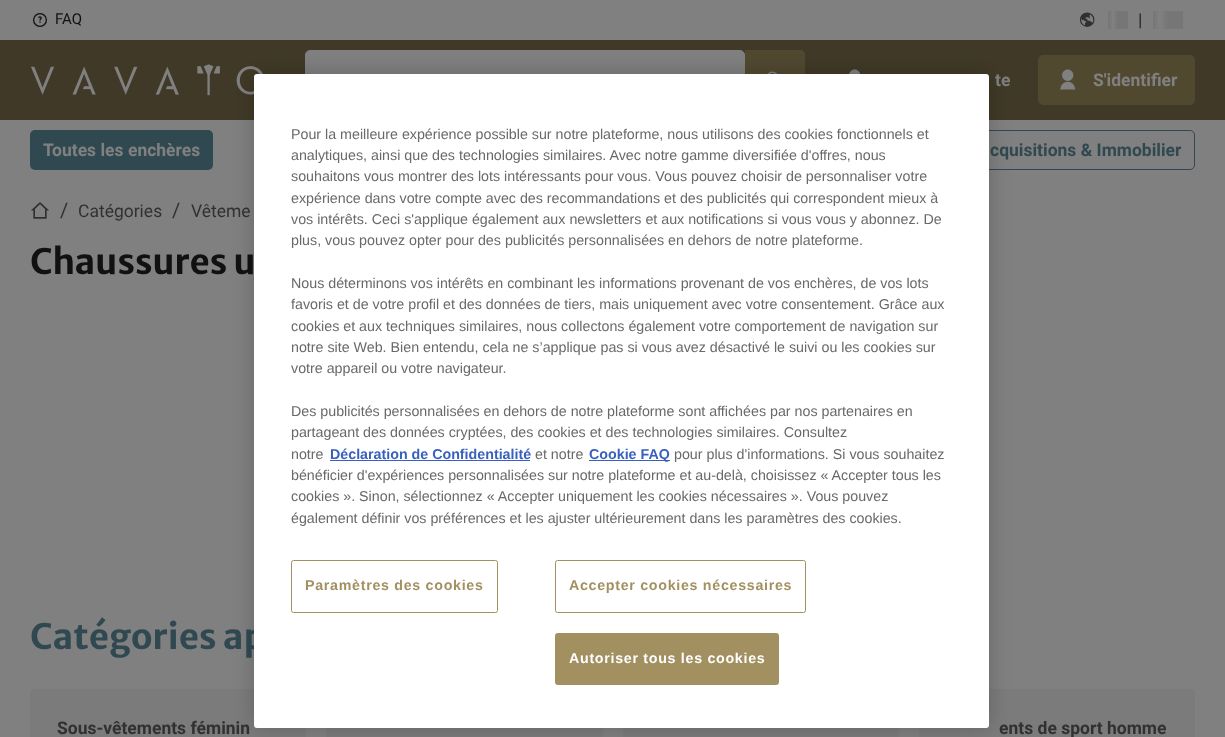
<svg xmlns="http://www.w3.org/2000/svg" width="1225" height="737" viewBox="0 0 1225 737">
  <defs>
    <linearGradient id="g1" gradientUnits="userSpaceOnUse" x1="1108" y1="20" x2="1113" y2="20"><stop offset="0" stop-color="#767676"/><stop offset="1" stop-color="#808080"/></linearGradient>
    <linearGradient id="g2" gradientUnits="userSpaceOnUse" x1="1113" y1="20" x2="1118" y2="20"><stop offset="0" stop-color="#808080"/><stop offset="1" stop-color="#767676"/></linearGradient>
    <linearGradient id="g3" gradientUnits="userSpaceOnUse" x1="1153" y1="20" x2="1160" y2="20"><stop offset="0" stop-color="#767676"/><stop offset="1" stop-color="#808080"/></linearGradient>
    <linearGradient id="g4" gradientUnits="userSpaceOnUse" x1="1160" y1="20" x2="1168" y2="20"><stop offset="0" stop-color="#808080"/><stop offset="1" stop-color="#767676"/></linearGradient>
    <filter id="blur1" x="-50%" y="-200%" width="200%" height="500%"><feGaussianBlur stdDeviation="11"/></filter>
  </defs>
  <rect width="100%" height="100%" fill="#808080"/>
  <image x="33" y="13" width="14" height="14" href="img1.png"/>
  <text x="55" y="24" font-family="Roboto" font-size="15" fill="#111111">FAQ</text>
  <image x="1079" y="12" width="16" height="15" href="img2.png"/>
  <rect x="1118" y="11" width="10" height="18" fill="#767676"/>
  <rect x="1108" y="11" width="4" height="18" fill="url(#g1)"/>
  <rect x="1114" y="11" width="4" height="18" fill="url(#g2)"/>
  <text x="1138" y="26" font-family="Roboto" font-size="17.5" font-weight="bold" fill="#313131">|</text>
  <rect x="1168" y="11" width="15" height="18" fill="#767676"/>
  <rect x="1153" y="11" width="5" height="18" fill="url(#g3)"/>
  <rect x="1162" y="11" width="6" height="18" fill="url(#g4)"/>
  <rect x="0" y="40" width="1225" height="80" fill="#403927"/>
  <image x="31" y="64" width="232" height="32" href="img3.png"/>
  <rect x="305.5" y="50.5" width="439" height="59" rx="4.5" fill="#808080" stroke="#808080"/>
  <path d="M745 50H800C803 50 805 52 805 55V105C805 108 803 110 800 110H745Z" fill="#514830"/>
  <image x="767" y="71" width="10" height="3" href="img4.png"/>
  <image x="849" y="69" width="12" height="5" href="img5.png"/>
  <text x="995" y="86" font-family="Roboto" font-size="17.5" font-weight="bold" fill="#808080">te</text>
  <rect x="1038" y="55" width="157" height="50" rx="5" fill="#514830"/>
  <image x="1060" y="69" width="16" height="21" href="img6.png"/>
  <text x="1093" y="86" font-family="Roboto" font-size="17.5" font-weight="bold" fill="#808080">S'identifier</text>
  <rect x="30" y="130" width="183" height="40" rx="5" fill="#304951"/>
  <text x="43" y="156" font-family="Roboto" font-size="17.5" font-weight="bold" fill="#808080">Toutes les enchères</text>
  <rect x="964.5" y="130.5" width="230" height="39" rx="4.5" fill="none" stroke="#304951"/>
  <text x="990" y="156" font-family="Roboto" font-size="17.5" font-weight="bold" fill="#304951">cquisitions &amp; Immobilier</text>
  <image x="31" y="202" width="18" height="17" href="img7.png"/>
  <text x="60" y="217" font-family="Roboto" font-size="20" fill="#313131">/</text>
  <text x="78" y="217" font-family="Roboto" font-size="17.5" fill="#313131">Catégories</text>
  <text x="172" y="217" font-family="Roboto" font-size="20" fill="#313131">/</text>
  <text x="191" y="217" font-family="Roboto" font-size="17.5" fill="#313131">Vêteme</text>
  <text x="30" y="274" font-family="Merriweather Sans" font-size="35" font-weight="bold" fill="#111111">Chaussures u</text>
  <text x="30" y="649" font-family="Merriweather Sans" font-size="35" font-weight="bold" fill="#304951">Catégories ap</text>
  <rect x="30" y="689" width="276" height="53" rx="5" fill="#7b7b7b"/>
  <text x="57" y="734" font-family="Roboto" font-size="17.5" font-weight="bold" fill="#313131">Sous-vêtements féminin</text>
  <rect x="326" y="728" width="277" height="9" fill="#7b7b7b"/>
  <rect x="623" y="728" width="276" height="9" fill="#7b7b7b"/>
  <rect x="919" y="689" width="276" height="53" rx="5" fill="#7b7b7b"/>
  <text x="999" y="734" font-family="Roboto" font-size="17.5" font-weight="bold" fill="#313131">ents de sport homme</text>
  <rect x="254" y="74" width="735" height="654" rx="3" fill="#000000" fill-opacity="0.2" filter="url(#blur1)"/>
  <rect x="254" y="74" width="735" height="654" rx="3" fill="#ffffff"/>
  <text x="291" y="139" font-family="Liberation Sans" font-size="14.25" fill="#696969">Pour la meilleure expérience possible sur notre plateforme, nous utilisons des cookies fonctionnels et</text>
  <text x="291" y="160" font-family="Liberation Sans" font-size="14.25" fill="#696969">analytiques, ainsi que des technologies similaires. Avec notre gamme diversifiée d'offres, nous</text>
  <text x="291" y="181" font-family="Liberation Sans" font-size="14.25" fill="#696969">souhaitons vous montrer des lots intéressants pour vous. Vous pouvez choisir de personnaliser votre</text>
  <text x="291" y="203" font-family="Liberation Sans" font-size="14.25" fill="#696969">expérience dans votre compte avec des recommandations et des publicités qui correspondent mieux à</text>
  <text x="291" y="224" font-family="Liberation Sans" font-size="14.25" fill="#696969">vos intérêts. Ceci s'applique également aux newsletters et aux notifications si vous vous y abonnez. De</text>
  <text x="291" y="245" font-family="Liberation Sans" font-size="14.25" fill="#696969">plus, vous pouvez opter pour des publicités personnalisées en dehors de notre plateforme.</text>
  <text x="291" y="288" font-family="Liberation Sans" font-size="14.25" fill="#696969">Nous déterminons vos intérêts en combinant les informations provenant de vos enchères, de vos lots</text>
  <text x="291" y="309" font-family="Liberation Sans" font-size="14.25" fill="#696969">favoris et de votre profil et des données de tiers, mais uniquement avec votre consentement. Grâce aux</text>
  <text x="291" y="331" font-family="Liberation Sans" font-size="14.25" fill="#696969">cookies et aux techniques similaires, nous collectons également votre comportement de navigation sur</text>
  <text x="291" y="352" font-family="Liberation Sans" font-size="14.25" fill="#696969">notre site Web. Bien entendu, cela ne s’applique pas si vous avez désactivé le suivi ou les cookies sur</text>
  <text x="291" y="373" font-family="Liberation Sans" font-size="14.25" fill="#696969">votre appareil ou votre navigateur.</text>
  <text x="291" y="416" font-family="Liberation Sans" font-size="14.25" fill="#696969">Des publicités personnalisées en dehors de notre plateforme sont affichées par nos partenaires en</text>
  <text x="291" y="437" font-family="Liberation Sans" font-size="14.25" fill="#696969">partageant des données cryptées, des cookies et des technologies similaires. Consultez</text>
  <text x="291" y="459" font-family="Liberation Sans" font-size="14.25" fill="#696969">notre</text>
  <text x="330" y="459" font-family="Liberation Sans" font-size="14.25" font-weight="bold" fill="#3860be">Déclaration de Confidentialité</text>
  <rect x="330" y="460" width="200" height="1" fill="#3860be"/>
  <text x="535" y="459" font-family="Liberation Sans" font-size="14.25" fill="#696969">et notre</text>
  <rect x="589" y="460" width="81" height="1" fill="#3860be"/>
  <text x="589" y="459" font-family="Liberation Sans" font-size="14.25" font-weight="bold" fill="#3860be">Cookie FAQ</text>
  <text x="674" y="459" font-family="Liberation Sans" font-size="14.25" fill="#696969">pour plus d'informations. Si vous souhaitez</text>
  <text x="291" y="480" font-family="Liberation Sans" font-size="14.25" fill="#696969">bénéficier d'expériences personnalisées sur notre plateforme et au-delà, choisissez « Accepter tous les</text>
  <text x="291" y="501" font-family="Liberation Sans" font-size="14.25" fill="#696969">cookies ». Sinon, sélectionnez « Accepter uniquement les cookies nécessaires ». Vous pouvez</text>
  <text x="291" y="523" font-family="Liberation Sans" font-size="14.25" fill="#696969">également définir vos préférences et les ajuster ultérieurement dans les paramètres des cookies.</text>
  <rect x="291.5" y="560.5" width="206" height="52" rx="2" fill="none" stroke="#a29060"/>
  <text x="305" y="590" font-family="Liberation Sans" font-size="14.25" font-weight="bold" letter-spacing="0.7" fill="#a29060">Paramètres des cookies</text>
  <rect x="555.5" y="560.5" width="250" height="52" rx="2" fill="none" stroke="#a29060"/>
  <text x="569" y="590" font-family="Liberation Sans" font-size="14.25" font-weight="bold" letter-spacing="0.7" fill="#a29060">Accepter cookies nécessaires</text>
  <rect x="555.5" y="633.5" width="223" height="51" rx="2" fill="#a29060" stroke="#a29060"/>
  <text x="569" y="663" font-family="Liberation Sans" font-size="14.25" font-weight="bold" letter-spacing="0.7" fill="#ffffff">Autoriser tous les cookies</text>
</svg>
